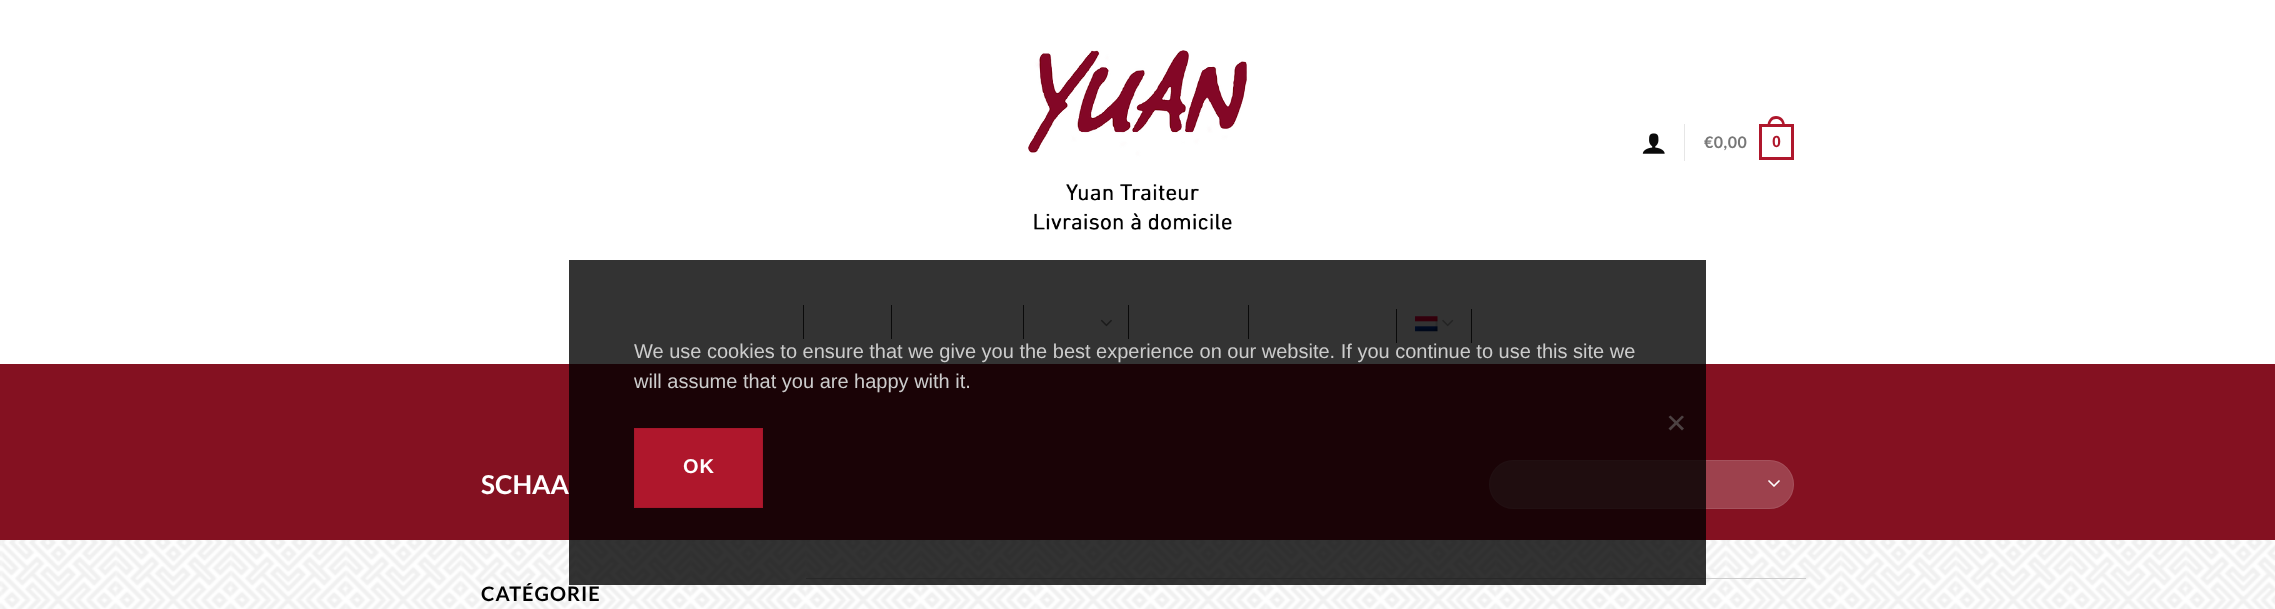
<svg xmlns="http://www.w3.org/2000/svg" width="2275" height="609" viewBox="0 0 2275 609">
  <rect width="100%" height="100%" fill="#ffffff"/>
  <image x="1028" y="50" width="219" height="180" href="img1.png"/>
  <image x="1642" y="133" width="23" height="21" href="img2.png"/>
  <rect x="1684" y="124" width="1" height="37" fill="#e6e6e6"/>
  <text x="1704" y="148" font-family="Lato" font-size="16" font-weight="bold" letter-spacing="0.5" fill="#777777">€0,00</text>
  <rect x="1760.5" y="125.5" width="32" height="33" fill="none" stroke="#af172c" stroke-width="3"/>
  <path d="M1776 116C1782 116 1785 121 1785 126H1767.5C1767.5 121 1770.5 116 1776 116ZM1776 119C1780.5 119 1782.5 122.5 1782.5 126H1770C1770 122.5 1772 119 1776 119Z" fill="#af172c" fill-rule="evenodd"/>
  <text x="1772" y="147" font-family="Liberation Sans" font-size="16" font-weight="bold" letter-spacing="0.5" fill="#af172c">0</text>
  <rect x="803" y="305" width="1" height="34" fill="#333333"/>
  <rect x="891" y="305" width="1" height="34" fill="#333333"/>
  <rect x="1023" y="305" width="1" height="34" fill="#333333"/>
  <image x="1100" y="319" width="12" height="8" href="img3.png"/>
  <rect x="1128" y="305" width="1" height="34" fill="#333333"/>
  <rect x="1248" y="305" width="1" height="34" fill="#333333"/>
  <rect x="1396" y="309" width="1" height="34" fill="#333333"/>
  <image x="1415" y="316" width="23" height="16" href="img4.png"/>
  <image x="1442" y="319" width="12" height="8" href="img5.png"/>
  <rect x="1471" y="309" width="1" height="34" fill="#333333"/>
  <rect x="0" y="364" width="2275" height="176" fill="#841121"/>
  <text x="481" y="494" font-family="Lato" font-size="26" font-weight="bold" fill="#ffffff">SCHAA</text>
  <rect x="1489" y="460" width="305" height="49" rx="24.5" fill="#9d414d"/>
  <path d="M1769 481L1774 486L1779 481" fill="none" stroke="#ffffff" stroke-width="1.7" stroke-linecap="round" stroke-linejoin="round"/>
  <rect x="1489.5" y="460.5" width="304" height="48" rx="24" fill="none" stroke="#ffffff" stroke-opacity="0.09"/>
  <image x="0" y="540" width="2275" height="69" href="img6.png"/>
  <rect x="806" y="578" width="1000" height="1" fill="#cccccc"/>
  <text x="481" y="601" font-family="Lato" font-size="20" font-weight="bold" letter-spacing="1" fill="#000000">CATÉGORIE</text>
  <rect x="569" y="260" width="1137" height="325" fill="#000000" fill-opacity="0.8"/>
  <text x="634" y="358" font-family="Liberation Sans" font-size="20" fill="#cccccc">We use cookies to ensure that we give you the best experience on our website. If you continue to use this site we</text>
  <text x="634" y="388" font-family="Liberation Sans" font-size="20" fill="#cccccc">will assume that you are happy with it.</text>
  <path d="M1682 415.5L1684 417L1670.5 430.5L1668.5 428.5Z" fill="#4d4243"/>
  <path d="M1668.5 417L1670.5 415.5L1684 428.5L1682 430.5Z" fill="#4d4243"/>
  <rect x="634.5" y="428.5" width="128" height="79" fill="#af172c" stroke="#a6162a"/>
  <text x="683" y="473" font-family="Liberation Sans" font-size="20" font-weight="bold" letter-spacing="1" fill="#ffffff">OK</text>
</svg>
